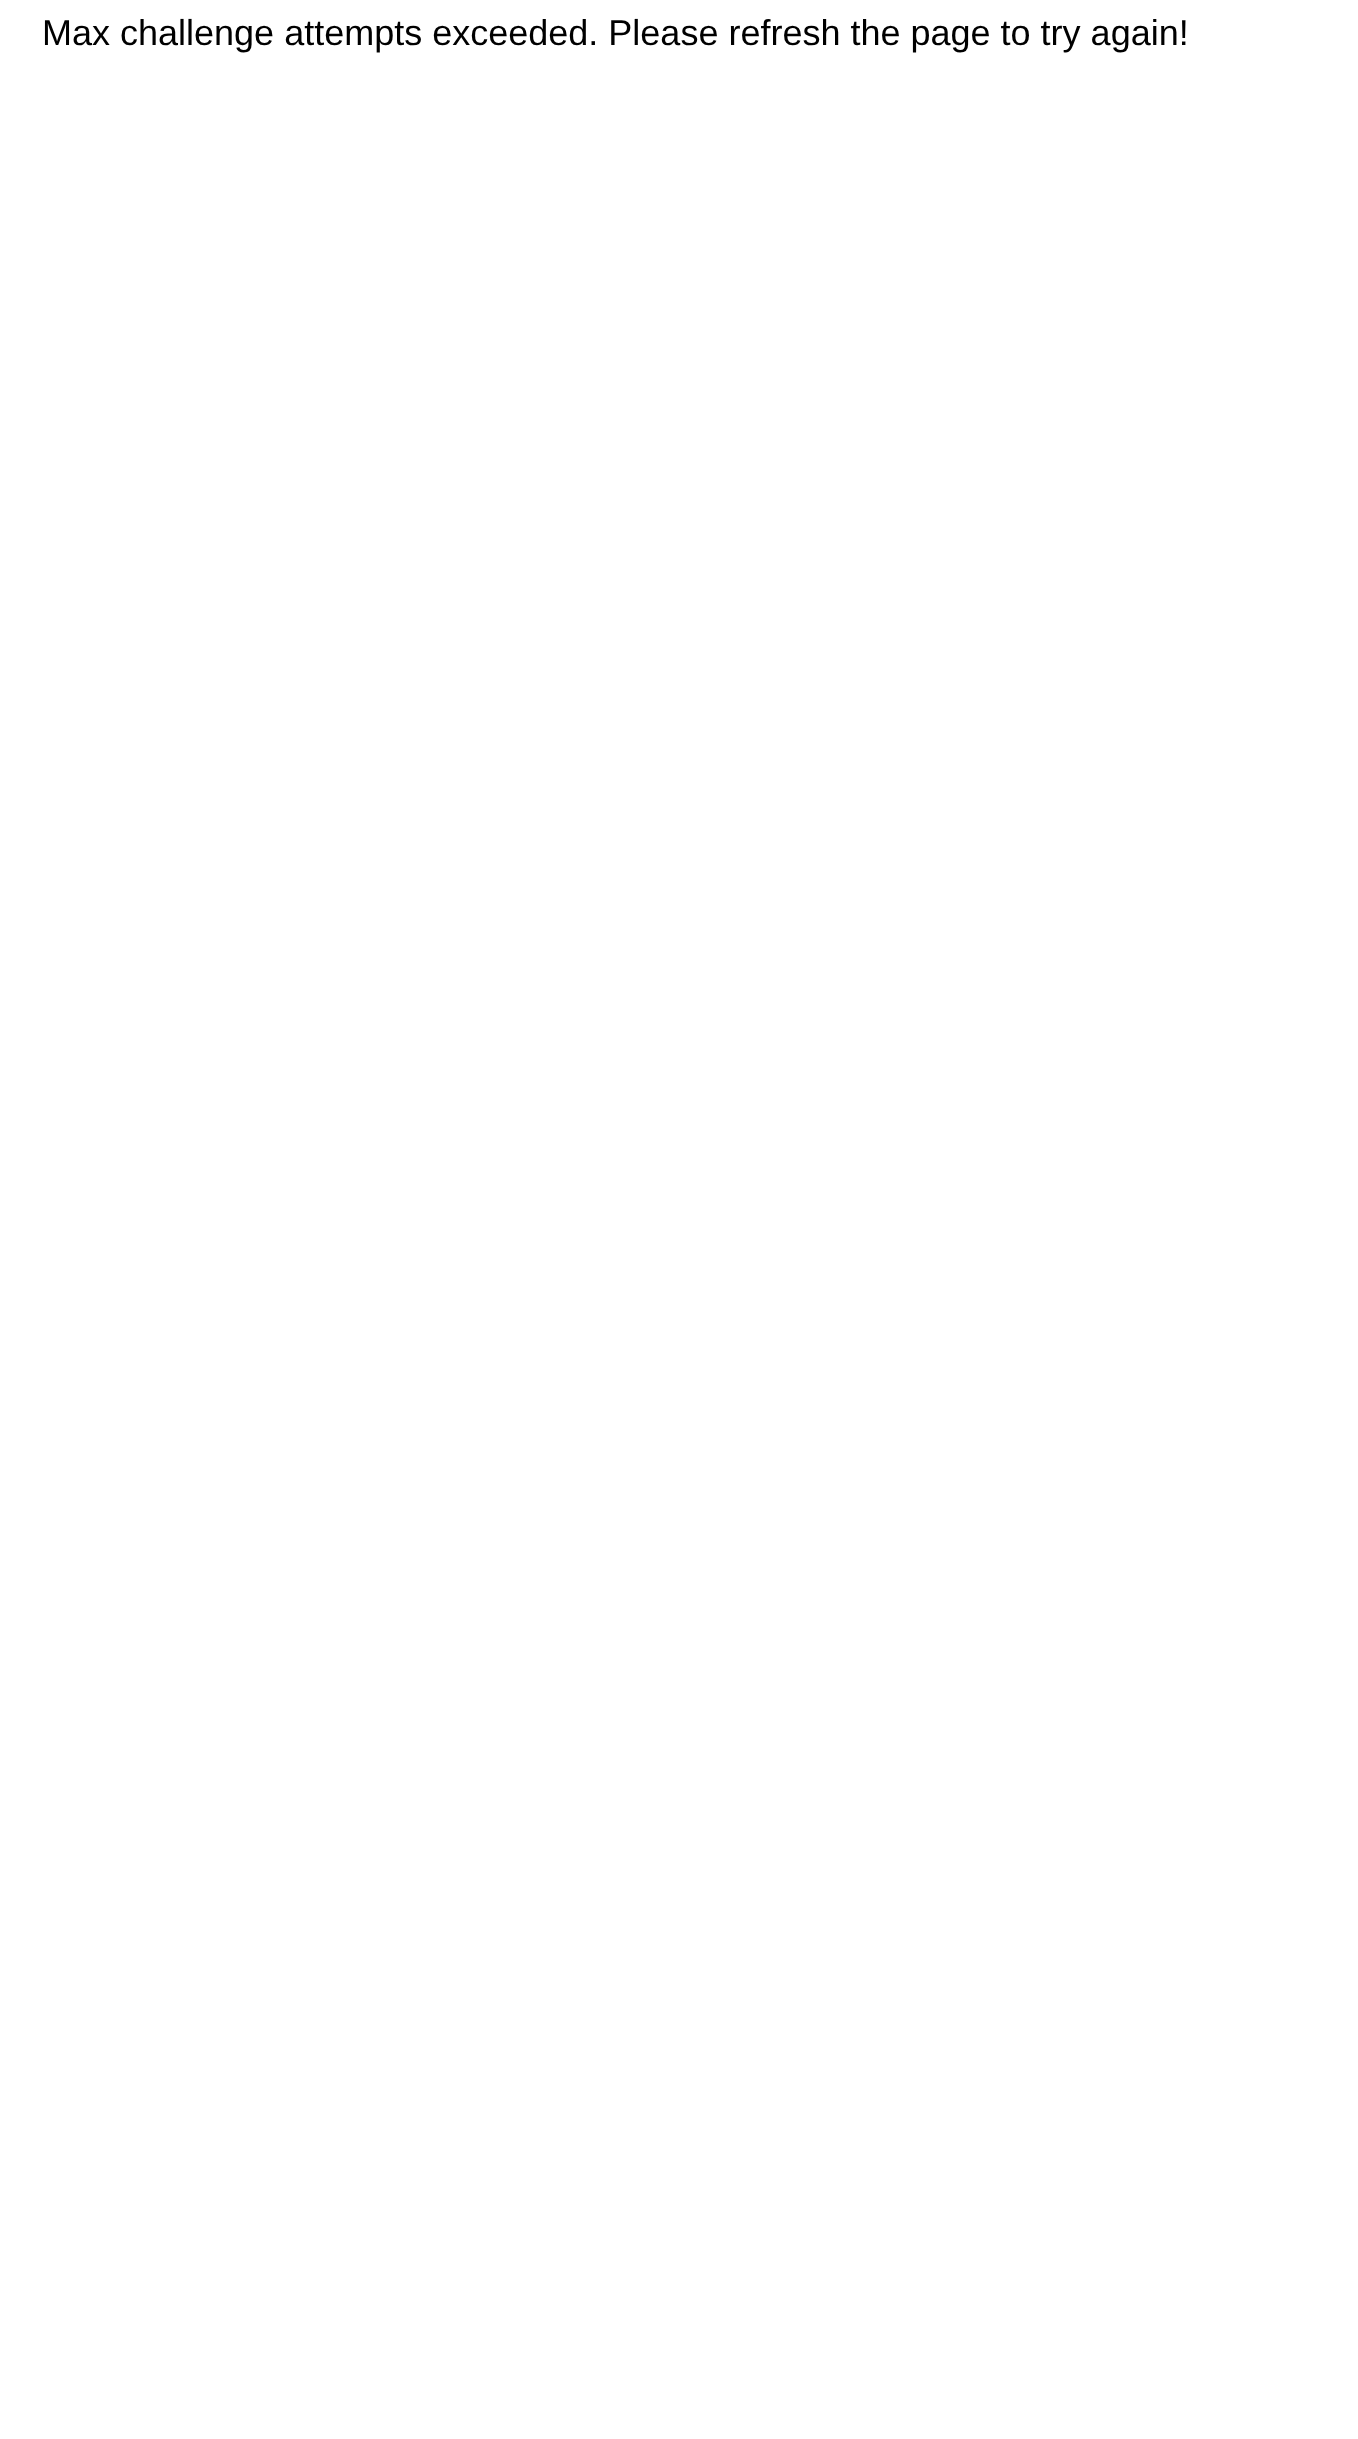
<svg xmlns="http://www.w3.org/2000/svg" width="1358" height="2439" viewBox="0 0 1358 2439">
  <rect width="100%" height="100%" fill="#ffffff"/>
  <text x="42" y="45" font-family="Liberation Sans" font-size="36" fill="#000000">Max challenge attempts exceeded. Please refresh the page to try again!</text>
</svg>
